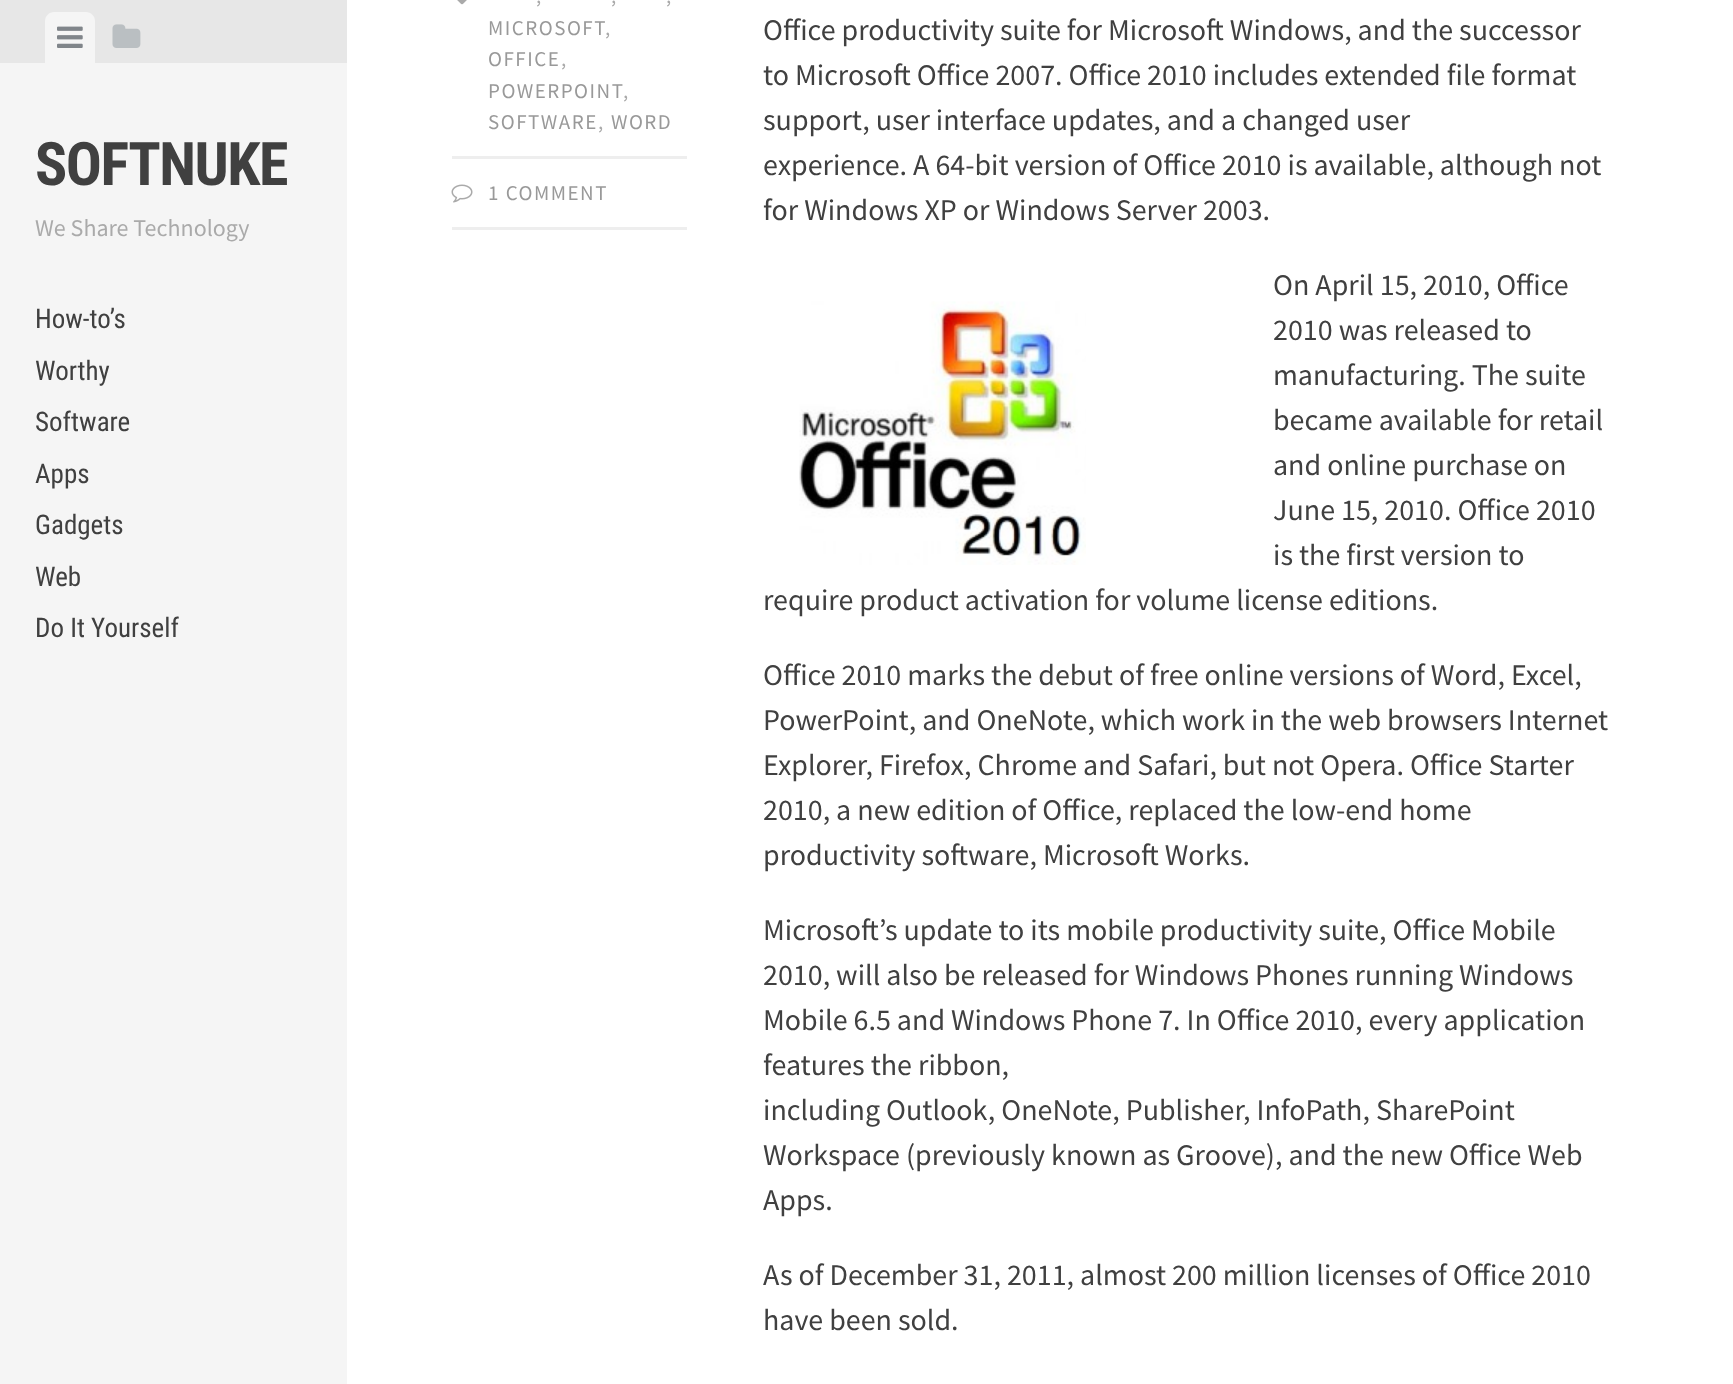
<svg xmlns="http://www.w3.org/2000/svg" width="1733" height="1384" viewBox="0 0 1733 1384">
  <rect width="100%" height="100%" fill="#ffffff"/>
  <rect x="0" y="63" width="347" height="1321" fill="#f5f5f5"/>
  <rect x="0" y="0" width="347" height="63" fill="#e7e7e7"/>
  <path d="M54 12H86C91 12 95 16 95 21V63H45V21C45 16 49 12 54 12Z" fill="#f5f5f5"/>
  <image x="57" y="26" width="26" height="22" href="img1.png"/>
  <image x="112" y="24" width="29" height="24" href="img2.png"/>
  <text x="35" y="185" font-family="Roboto Condensed" font-size="60" font-weight="bold" letter-spacing="-1.5" fill="#404040">SOFTNUKE</text>
  <text x="35" y="236" font-family="Source Sans Pro" font-size="24" fill="#aaaaaa">We Share Technology</text>
  <text x="35" y="328" font-family="Roboto Condensed" font-size="27" fill="#404040">How-to’s</text>
  <text x="35" y="380" font-family="Roboto Condensed" font-size="27" fill="#404040">Worthy</text>
  <text x="35" y="431" font-family="Roboto Condensed" font-size="27" fill="#404040">Software</text>
  <text x="35" y="483" font-family="Roboto Condensed" font-size="27" fill="#404040">Apps</text>
  <text x="35" y="534" font-family="Roboto Condensed" font-size="27" fill="#404040">Gadgets</text>
  <text x="35" y="586" font-family="Roboto Condensed" font-size="27" fill="#404040">Web</text>
  <text x="35" y="637" font-family="Roboto Condensed" font-size="27" fill="#404040">Do It Yourself</text>
  <rect x="452" y="156" width="235" height="3" fill="#eeeeee"/>
  <image x="457" y="0" width="10" height="5" href="img3.png"/>
  <text x="536" y="3" font-family="Source Sans Pro" font-size="21" letter-spacing="1.5" fill="#aaaaaa">,</text>
  <text x="611" y="3" font-family="Source Sans Pro" font-size="21" letter-spacing="1.5" fill="#aaaaaa">,</text>
  <text x="666" y="3" font-family="Source Sans Pro" font-size="21" letter-spacing="1.5" fill="#aaaaaa">,</text>
  <text x="488" y="35" font-family="Source Sans Pro" font-size="21" letter-spacing="1.5" fill="#999999">MICROSOFT</text>
  <text x="605" y="35" font-family="Source Sans Pro" font-size="21" letter-spacing="1.5" fill="#aaaaaa">,</text>
  <text x="488" y="66" font-family="Source Sans Pro" font-size="21" letter-spacing="1.5" fill="#999999">OFFICE</text>
  <text x="561" y="66" font-family="Source Sans Pro" font-size="21" letter-spacing="1.5" fill="#aaaaaa">,</text>
  <text x="488" y="98" font-family="Source Sans Pro" font-size="21" letter-spacing="1.5" fill="#999999">POWERPOINT</text>
  <text x="623" y="98" font-family="Source Sans Pro" font-size="21" letter-spacing="1.5" fill="#aaaaaa">,</text>
  <text x="488" y="129" font-family="Source Sans Pro" font-size="21" letter-spacing="1.5" fill="#999999">SOFTWARE</text>
  <text x="598" y="129" font-family="Source Sans Pro" font-size="21" letter-spacing="1.5" fill="#aaaaaa">,</text>
  <text x="611" y="129" font-family="Source Sans Pro" font-size="21" letter-spacing="1.5" fill="#999999">WORD</text>
  <rect x="452" y="227" width="235" height="3" fill="#eeeeee"/>
  <image x="451" y="184" width="22" height="19" href="img4.png"/>
  <text x="488" y="200" font-family="Source Sans Pro" font-size="21" letter-spacing="1.5" fill="#999999">1 COMMENT</text>
  <text x="763" y="40" font-family="Source Sans Pro" font-size="30" fill="#404040">Office productivity suite for Microsoft Windows, and the successor</text>
  <text x="763" y="85" font-family="Source Sans Pro" font-size="30" fill="#404040">to Microsoft Office 2007. Office 2010 includes extended file format</text>
  <text x="763" y="130" font-family="Source Sans Pro" font-size="30" fill="#404040">support, user interface updates, and a changed user</text>
  <text x="763" y="175" font-family="Source Sans Pro" font-size="30" fill="#404040">experience. A 64-bit version of Office 2010 is available, although not</text>
  <text x="763" y="220" font-family="Source Sans Pro" font-size="30" fill="#404040">for Windows XP or Windows Server 2003.</text>
  <text x="1273" y="295" font-family="Source Sans Pro" font-size="30" fill="#404040">On April 15, 2010, Office</text>
  <text x="1273" y="340" font-family="Source Sans Pro" font-size="30" fill="#404040">2010 was released to</text>
  <text x="1273" y="385" font-family="Source Sans Pro" font-size="30" fill="#404040">manufacturing. The suite</text>
  <text x="1273" y="430" font-family="Source Sans Pro" font-size="30" fill="#404040">became available for retail</text>
  <text x="1273" y="475" font-family="Source Sans Pro" font-size="30" fill="#404040">and online purchase on</text>
  <text x="1273" y="520" font-family="Source Sans Pro" font-size="30" fill="#404040">June 15, 2010. Office 2010</text>
  <text x="1273" y="565" font-family="Source Sans Pro" font-size="30" fill="#404040">is the first version to</text>
  <text x="763" y="610" font-family="Source Sans Pro" font-size="30" fill="#404040">require product activation for volume license editions.</text>
  <image x="799" y="301" width="287" height="264" href="img5.png"/>
  <text x="763" y="685" font-family="Source Sans Pro" font-size="30" fill="#404040">Office 2010 marks the debut of free online versions of Word, Excel,</text>
  <text x="763" y="730" font-family="Source Sans Pro" font-size="30" fill="#404040">PowerPoint, and OneNote, which work in the web browsers Internet</text>
  <text x="763" y="775" font-family="Source Sans Pro" font-size="30" fill="#404040">Explorer, Firefox, Chrome and Safari, but not Opera. Office Starter</text>
  <text x="763" y="820" font-family="Source Sans Pro" font-size="30" fill="#404040">2010, a new edition of Office, replaced the low-end home</text>
  <text x="763" y="865" font-family="Source Sans Pro" font-size="30" fill="#404040">productivity software, Microsoft Works.</text>
  <text x="763" y="940" font-family="Source Sans Pro" font-size="30" fill="#404040">Microsoft’s update to its mobile productivity suite, Office Mobile</text>
  <text x="763" y="985" font-family="Source Sans Pro" font-size="30" fill="#404040">2010, will also be released for Windows Phones running Windows</text>
  <text x="763" y="1030" font-family="Source Sans Pro" font-size="30" fill="#404040">Mobile 6.5 and Windows Phone 7. In Office 2010, every application</text>
  <text x="763" y="1075" font-family="Source Sans Pro" font-size="30" fill="#404040">features the ribbon,</text>
  <text x="763" y="1120" font-family="Source Sans Pro" font-size="30" fill="#404040">including Outlook, OneNote, Publisher, InfoPath, SharePoint</text>
  <text x="763" y="1165" font-family="Source Sans Pro" font-size="30" fill="#404040">Workspace (previously known as Groove), and the new Office Web</text>
  <text x="763" y="1210" font-family="Source Sans Pro" font-size="30" fill="#404040">Apps.</text>
  <text x="763" y="1285" font-family="Source Sans Pro" font-size="30" fill="#404040">As of December 31, 2011, almost 200 million licenses of Office 2010</text>
  <text x="763" y="1330" font-family="Source Sans Pro" font-size="30" fill="#404040">have been sold.</text>
</svg>
